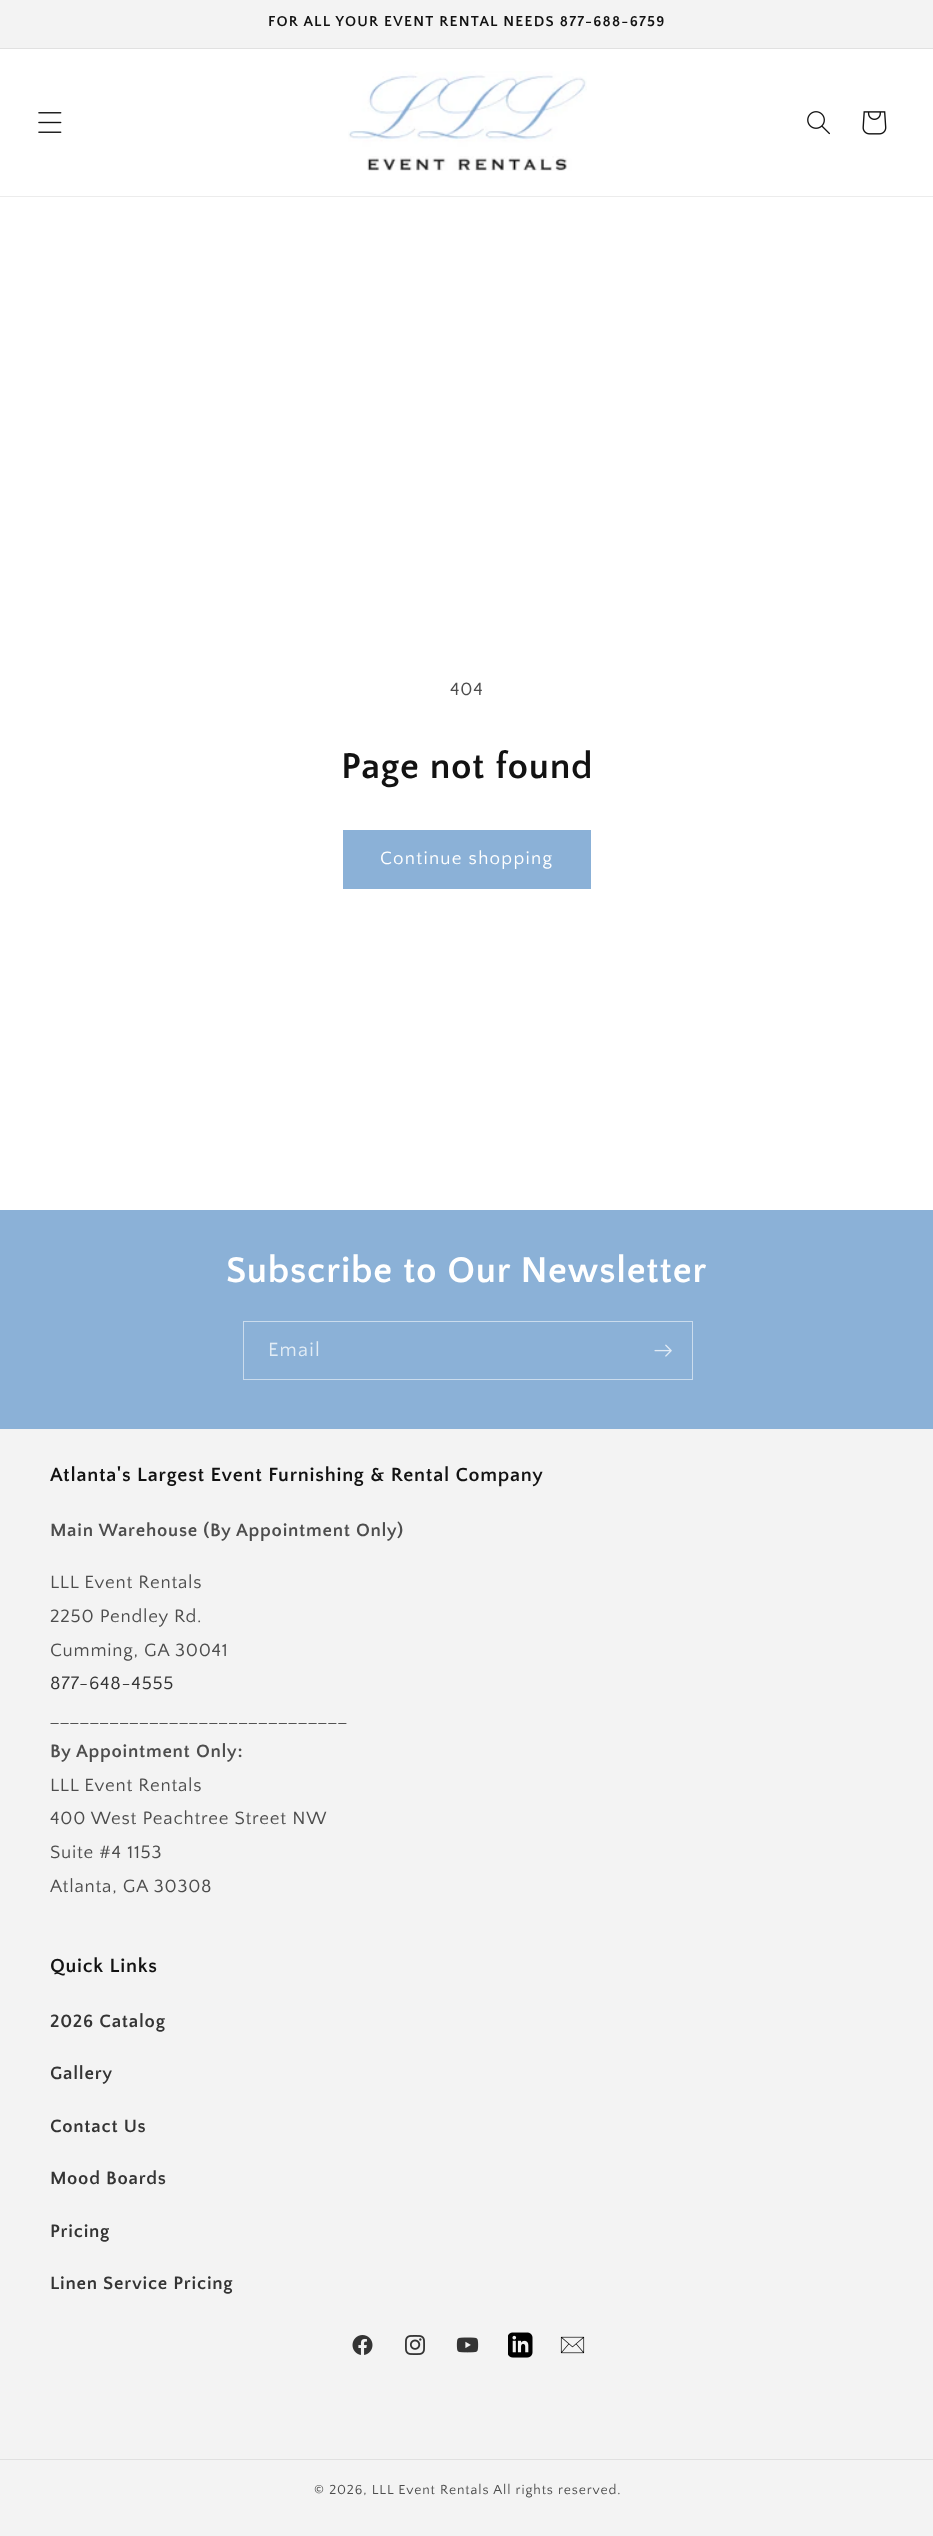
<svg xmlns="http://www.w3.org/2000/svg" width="933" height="2536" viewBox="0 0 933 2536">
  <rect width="100%" height="100%" fill="#ffffff"/>
  <rect x="0" y="0" width="933" height="48" fill="#f3f3f3"/>
  <rect x="0" y="48" width="933" height="1" fill="#e1e1e1"/>
  <text x="268" y="26" font-family="Quattrocento Sans" font-size="15" font-weight="bold" letter-spacing="1.25" fill="#121212">FOR ALL YOUR EVENT RENTAL NEEDS 877-688-6759</text>
  <rect x="0" y="196" width="933" height="1" fill="#ececec"/>
  <image x="38" y="112" width="24" height="21" href="img1.png"/>
  <image x="348" y="71" width="239" height="100" href="img2.png"/>
  <image x="807" y="111" width="23" height="24" href="img3.png"/>
  <image x="862" y="111" width="25" height="24" href="img4.png"/>
  <text x="450" y="695" font-family="Quattrocento Sans" font-size="18.75" letter-spacing="0.75" fill="#4d4d4d">404</text>
  <text x="341" y="778" font-family="Quattrocento Sans" font-size="37.5" font-weight="bold" letter-spacing="0.75" fill="#121212">Page not found</text>
  <rect x="343" y="830" width="248" height="59" fill="#8bb1d7"/>
  <text x="380" y="864" font-family="Quattrocento Sans" font-size="18.75" letter-spacing="1.25" fill="#ffffff">Continue shopping</text>
  <rect x="0" y="1210" width="933" height="219" fill="#8bb1d7"/>
  <text x="226" y="1282" font-family="Quattrocento Sans" font-size="37.5" font-weight="bold" letter-spacing="0.75" fill="#ffffff">Subscribe to Our Newsletter</text>
  <rect x="243.5" y="1321.5" width="449" height="58" fill="none" stroke="#cbdced"/>
  <text x="268" y="1356" font-family="Quattrocento Sans" font-size="20" letter-spacing="1.25" fill="#e2ecf5">Email</text>
  <image x="654" y="1344" width="18" height="13" href="img5.png"/>
  <rect x="0" y="1429" width="933" height="1107" fill="#f3f3f3"/>
  <text x="50" y="1481" font-family="Quattrocento Sans" font-size="20" font-weight="bold" letter-spacing="0.75" fill="#121212">Atlanta's Largest Event Furnishing &amp; Rental Company</text>
  <text x="50" y="1536" font-family="Quattrocento Sans" font-size="18.75" font-weight="bold" letter-spacing="0.75" fill="#4d4d4d">Main Warehouse (By Appointment Only)</text>
  <text x="50" y="1588" font-family="Quattrocento Sans" font-size="18.75" letter-spacing="0.75" fill="#4d4d4d">LLL Event Rentals</text>
  <text x="50" y="1622" font-family="Quattrocento Sans" font-size="18.75" letter-spacing="0.75" fill="#4d4d4d">2250 Pendley Rd.</text>
  <text x="50" y="1656" font-family="Quattrocento Sans" font-size="18.75" letter-spacing="0.75" fill="#4d4d4d">Cumming, GA 30041</text>
  <text x="50" y="1689" font-family="Quattrocento Sans" font-size="18.75" letter-spacing="0.75" fill="#343434">877-648-4555</text>
  <text x="50" y="1723" font-family="Quattrocento Sans" font-size="18.75" letter-spacing="0.75" fill="#4d4d4d">______________________________</text>
  <text x="50" y="1757" font-family="Quattrocento Sans" font-size="18.75" font-weight="bold" letter-spacing="0.75" fill="#4d4d4d">By Appointment Only:</text>
  <text x="50" y="1791" font-family="Quattrocento Sans" font-size="18.75" letter-spacing="0.75" fill="#4d4d4d">LLL Event Rentals</text>
  <text x="50" y="1824" font-family="Quattrocento Sans" font-size="18.75" letter-spacing="0.75" fill="#4d4d4d">400 West Peachtree Street NW</text>
  <text x="50" y="1858" font-family="Quattrocento Sans" font-size="18.75" letter-spacing="0.75" fill="#4d4d4d">Suite #4 1153</text>
  <text x="50" y="1892" font-family="Quattrocento Sans" font-size="18.75" letter-spacing="0.75" fill="#4d4d4d">Atlanta, GA 30308</text>
  <text x="50" y="1972" font-family="Quattrocento Sans" font-size="20" font-weight="bold" letter-spacing="0.75" fill="#121212">Quick Links</text>
  <text x="50" y="2027" font-family="Quattrocento Sans" font-size="18.75" font-weight="bold" letter-spacing="0.75" fill="#343434">2026 Catalog</text>
  <text x="50" y="2079" font-family="Quattrocento Sans" font-size="18.75" font-weight="bold" letter-spacing="0.75" fill="#343434">Gallery</text>
  <text x="50" y="2132" font-family="Quattrocento Sans" font-size="18.75" font-weight="bold" letter-spacing="0.75" fill="#343434">Contact Us</text>
  <text x="50" y="2184" font-family="Quattrocento Sans" font-size="18.75" font-weight="bold" letter-spacing="0.75" fill="#343434">Mood Boards</text>
  <text x="50" y="2237" font-family="Quattrocento Sans" font-size="18.75" font-weight="bold" letter-spacing="0.75" fill="#343434">Pricing</text>
  <text x="50" y="2289" font-family="Quattrocento Sans" font-size="18.75" font-weight="bold" letter-spacing="0.75" fill="#343434">Linen Service Pricing</text>
  <image x="352" y="2335" width="21" height="20" href="img6.png"/>
  <image x="405" y="2335" width="20" height="20" href="img7.png"/>
  <image x="456" y="2337" width="23" height="16" href="img8.png"/>
  <image x="508" y="2332" width="25" height="26" href="img9.png"/>
  <image x="560" y="2336" width="25" height="18" href="img10.png"/>
  <rect x="0" y="2459" width="933" height="1" fill="#e1e1e1"/>
  <text x="314" y="2494" font-family="Quattrocento Sans" font-size="13.75" letter-spacing="0.9" fill="#4d4d4d">© 2026, LLL Event Rentals All rights reserved.</text>
</svg>
